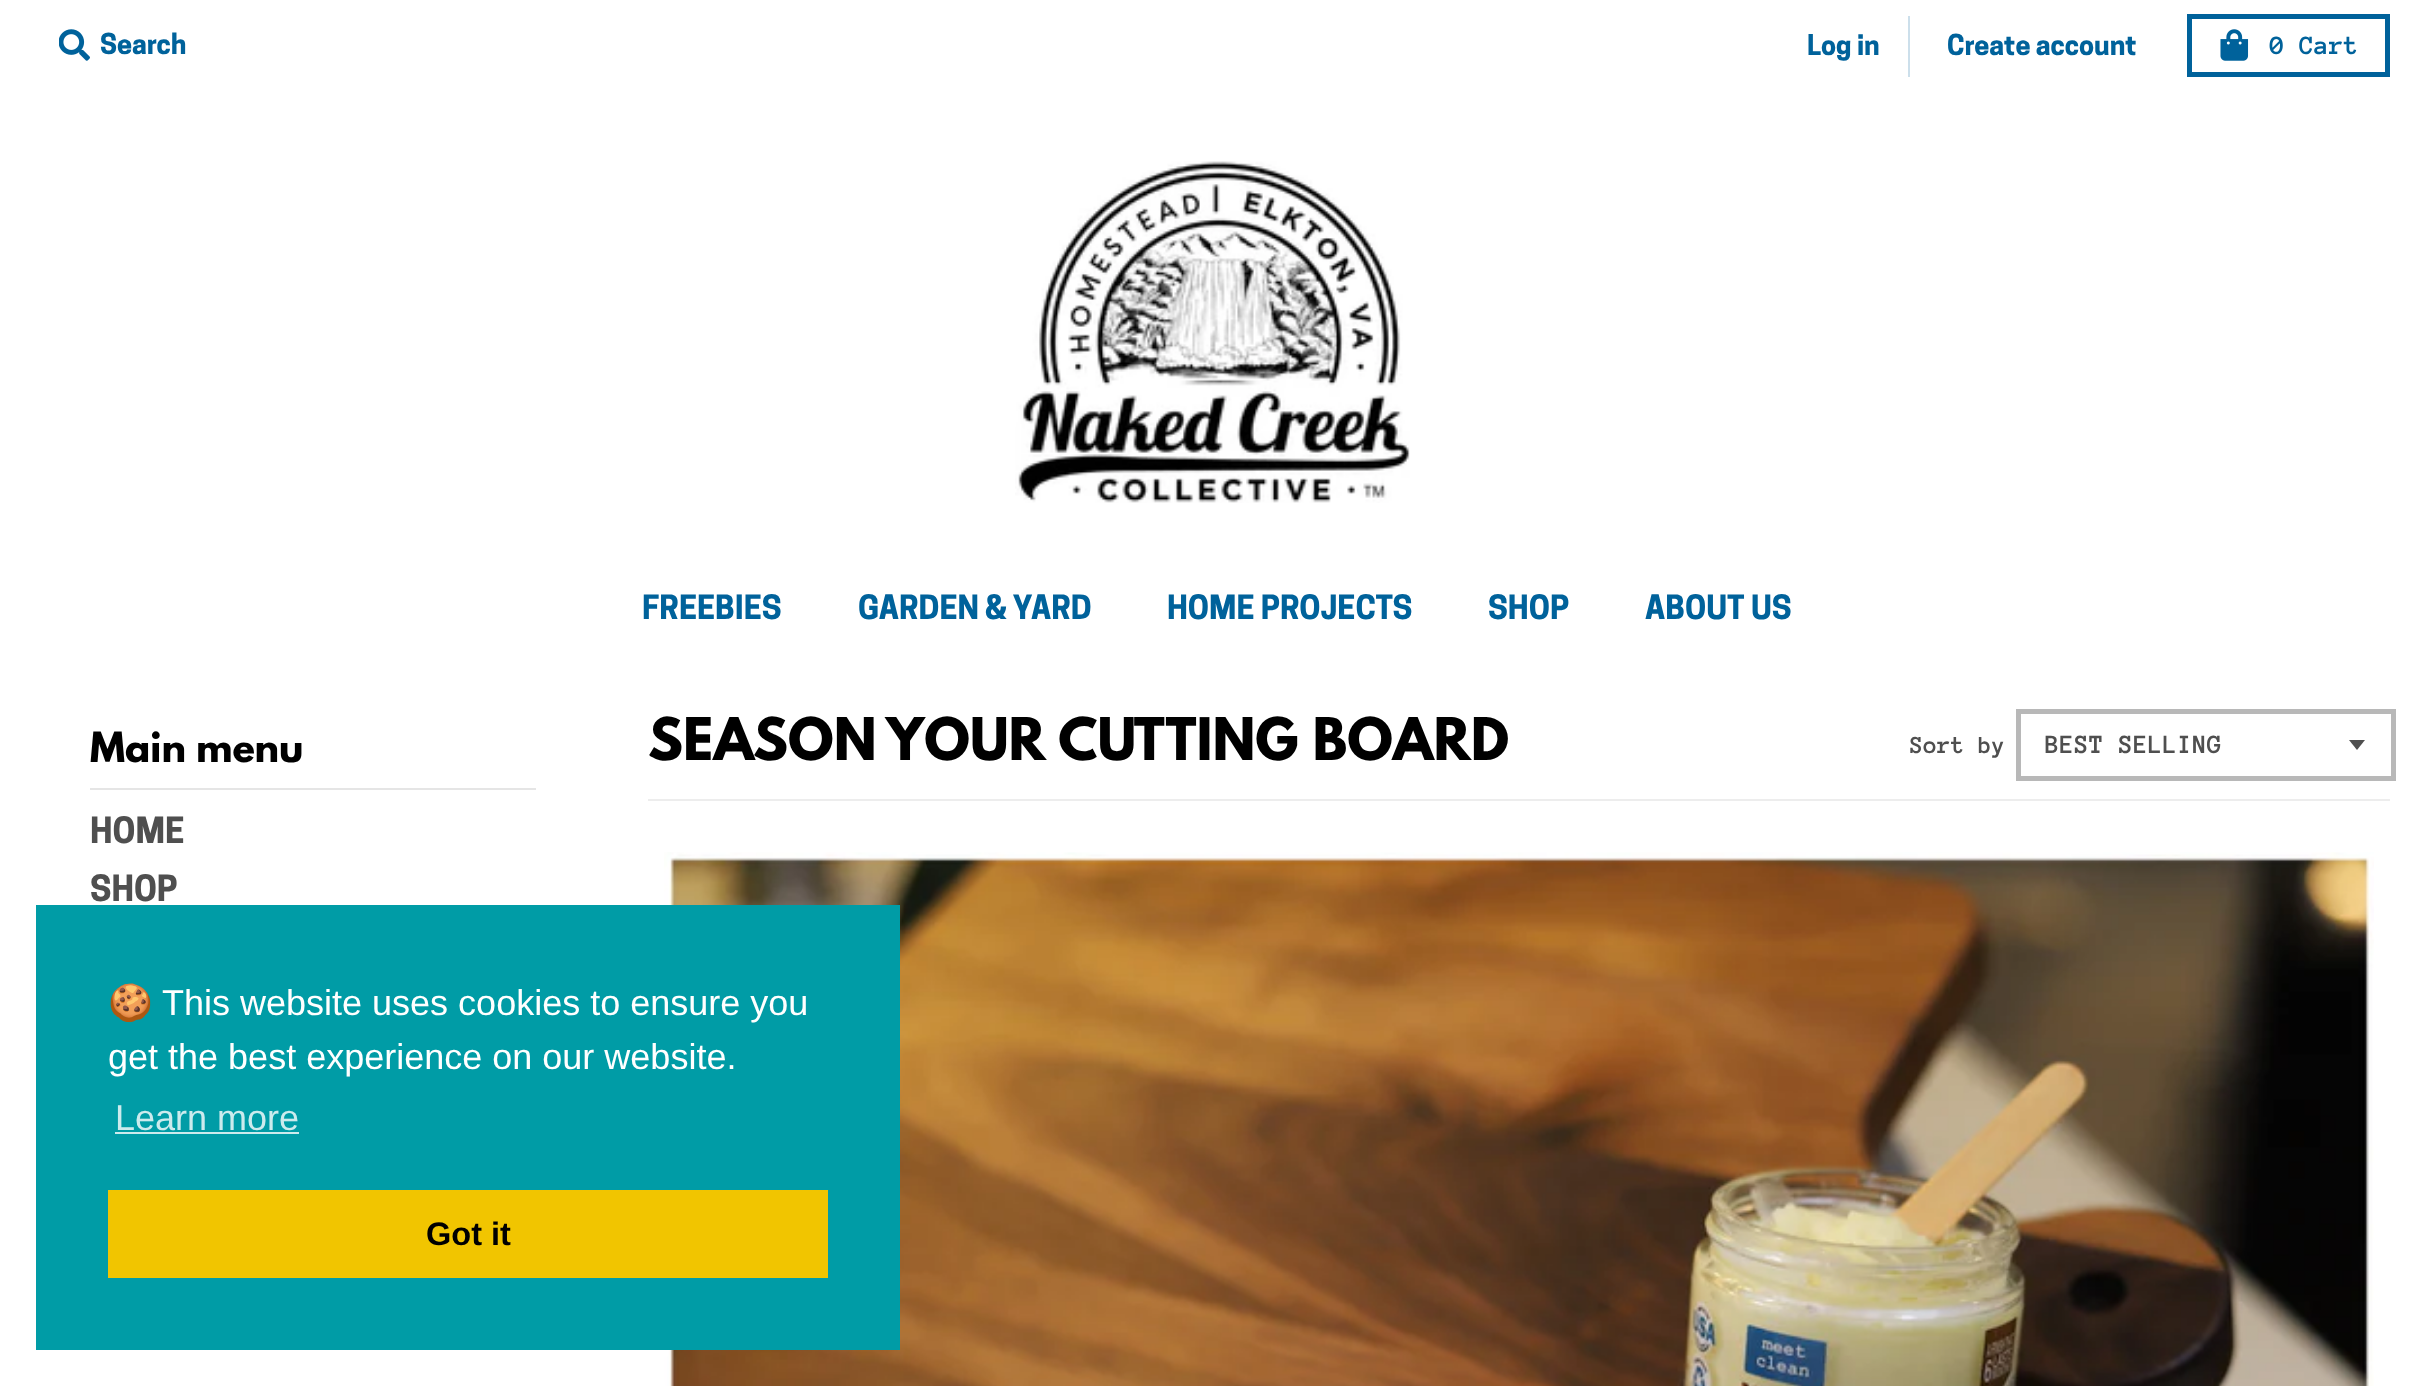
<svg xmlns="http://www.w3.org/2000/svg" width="2433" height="1386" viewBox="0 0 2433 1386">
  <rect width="100%" height="100%" fill="#ffffff"/>
  <image x="59" y="29" width="31" height="32" href="img1.png"/>
  <text x="100" y="54" font-family="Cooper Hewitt" font-size="27" font-weight="bold" fill="#00629b">Search</text>
  <rect x="1908" y="16" width="2" height="61" fill="#ccdfeb"/>
  <text x="1807" y="55" font-family="Cooper Hewitt" font-size="27" font-weight="bold" fill="#00629b">Log in</text>
  <text x="1947" y="55" font-family="Cooper Hewitt" font-size="27" font-weight="bold" fill="#00629b">Create account</text>
  <rect x="2189.5" y="16.5" width="198" height="58" fill="none" stroke="#00629b" stroke-width="5"/>
  <image x="2220" y="29" width="29" height="32" href="img2.png"/>
  <text x="2270" y="54" font-family="Anonymous Pro" font-size="27" font-weight="bold" fill="#00629b">0 Cart</text>
  <image x="1015" y="161" width="395" height="342" href="img3.png"/>
  <text x="642" y="619" font-family="Cooper Hewitt" font-size="31.5" font-weight="bold" fill="#00629b">FREEBIES</text>
  <text x="858" y="619" font-family="Cooper Hewitt" font-size="31.5" font-weight="bold" fill="#00629b">GARDEN &amp; YARD</text>
  <text x="1167" y="619" font-family="Cooper Hewitt" font-size="31.5" font-weight="bold" fill="#00629b">HOME PROJECTS</text>
  <text x="1488" y="619" font-family="Cooper Hewitt" font-size="31.5" font-weight="bold" fill="#00629b">SHOP</text>
  <text x="1645" y="619" font-family="Cooper Hewitt" font-size="31.5" font-weight="bold" fill="#00629b">ABOUT US</text>
  <rect x="90" y="788" width="446" height="2" fill="#e5e5e5"/>
  <text x="90" y="762" font-family="League Spartan" font-size="37" font-weight="bold" fill="#000000">Main menu</text>
  <text x="90" y="843" font-family="Cooper Hewitt" font-size="34" font-weight="bold" fill="#4f4f4f">HOME</text>
  <text x="90" y="901" font-family="Cooper Hewitt" font-size="34" font-weight="bold" fill="#4f4f4f">SHOP</text>
  <rect x="648" y="799" width="1742" height="2" fill="#ededed"/>
  <text x="648" y="760" font-family="League Spartan" font-size="52" font-weight="bold" fill="#000000">SEASON YOUR CUTTING BOARD</text>
  <text x="1910" y="753" font-family="Anonymous Pro" font-size="25" font-weight="bold" fill="#4f4f4f">Sort by</text>
  <path d="M2349 740L2357 750L2365 740Z" fill="#4f4f4f"/>
  <rect x="2018.5" y="711.5" width="375" height="67" fill="none" stroke="#b8b8b8" stroke-width="5"/>
  <text x="2045" y="753" font-family="Anonymous Pro" font-size="27" font-weight="bold" fill="#4f4f4f">BEST SELLING</text>
  <image x="664" y="852" width="1710" height="534" href="img4.png"/>
  <rect x="36" y="905" width="864" height="445" fill="#009ca6"/>
  <text x="108" y="1015" font-family="Noto Color Emoji" font-size="36" fill="#ffffff">🍪</text>
  <text x="162" y="1015" font-family="Liberation Sans" font-size="36" fill="#ffffff">This website uses cookies to ensure you</text>
  <text x="108" y="1069" font-family="Liberation Sans" font-size="36" fill="#ffffff">get the best experience on our website.</text>
  <text x="115" y="1130" font-family="Liberation Sans" font-size="36" fill="#ccebed">Learn more</text>
  <rect x="115" y="1132" width="184" height="2" fill="#ccebed"/>
  <rect x="108" y="1190" width="720" height="88" fill="#f1c500"/>
  <text x="426" y="1245" font-family="Liberation Sans" font-size="32.5" font-weight="bold" fill="#000000">Got it</text>
</svg>
